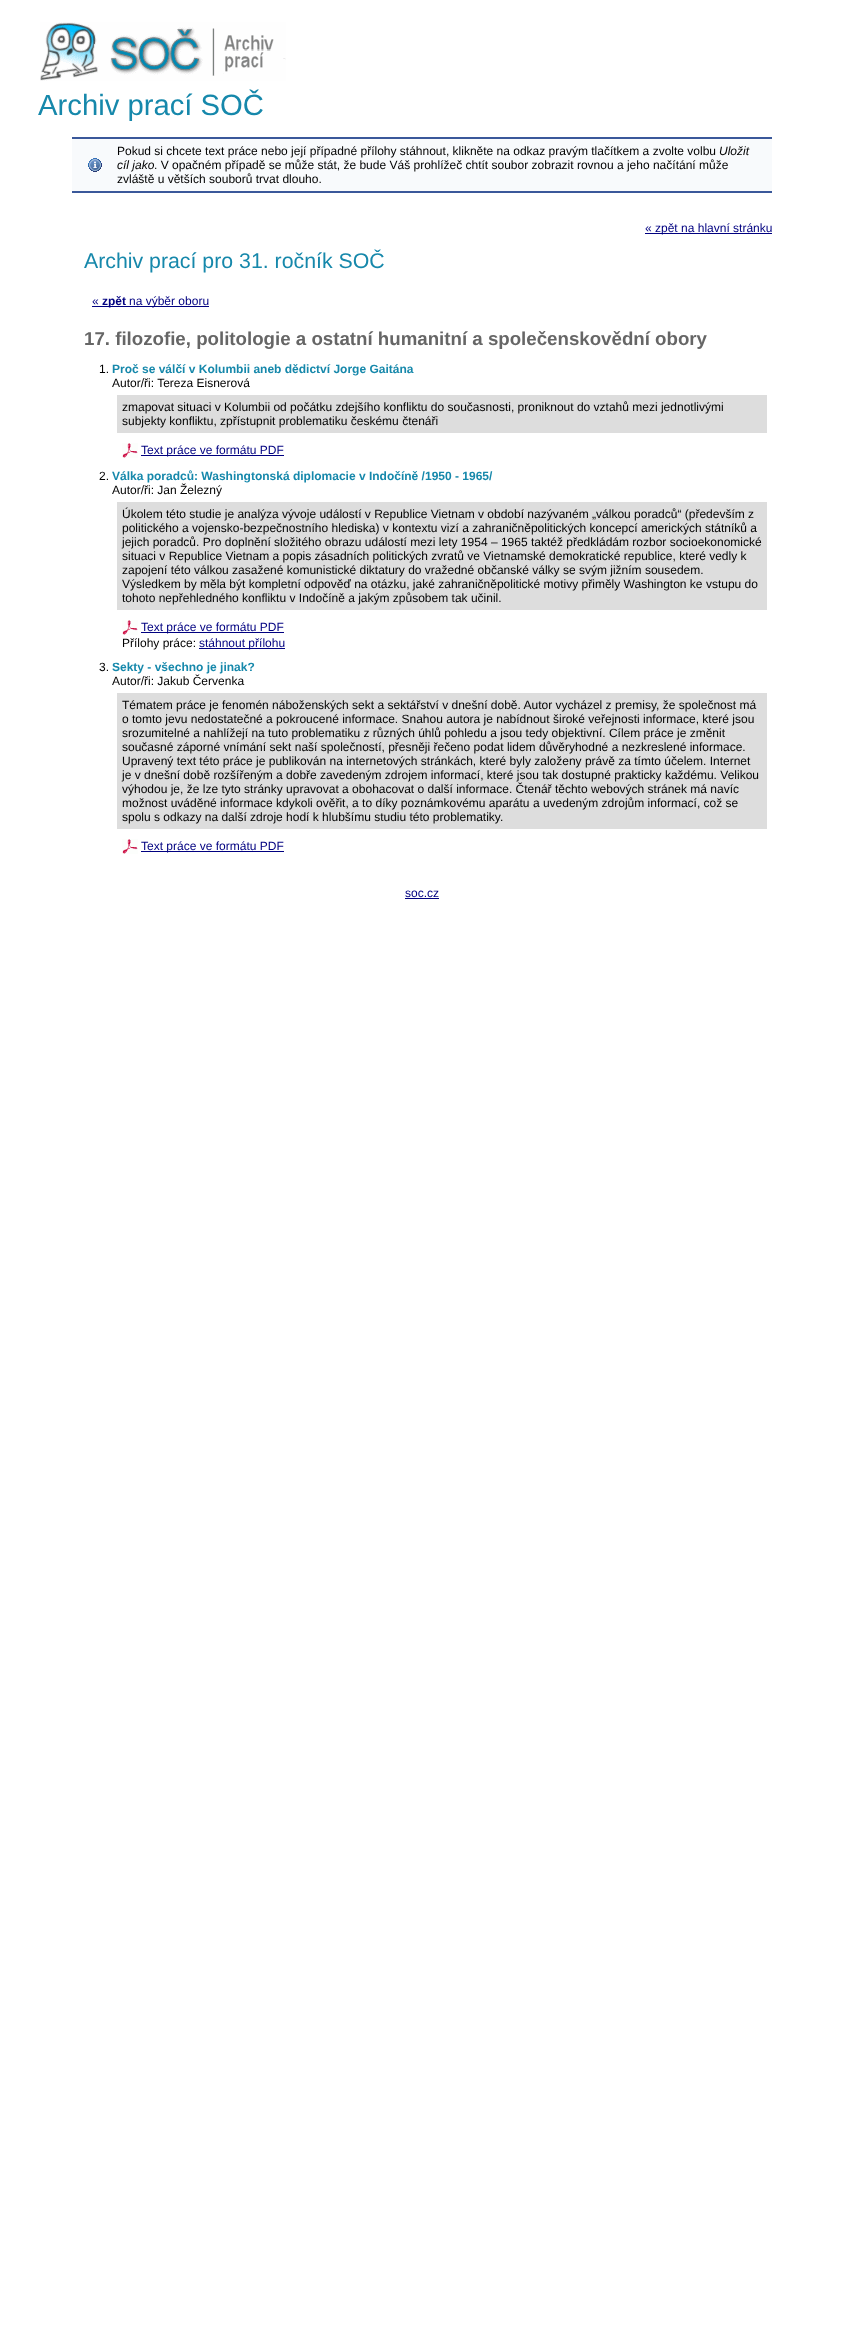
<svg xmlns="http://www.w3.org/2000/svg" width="844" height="2338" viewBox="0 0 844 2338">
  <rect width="100%" height="100%" fill="#ffffff"/>
  <image x="40" y="22" width="246" height="59" href="img1.png"/>
  <text x="38" y="115" font-family="Liberation Sans" font-size="29.25" fill="#1688ab">Archiv prací SOČ</text>
  <rect x="72" y="139" width="700" height="52" fill="#f8fafc"/>
  <image x="88" y="158" width="14" height="14" href="img2.png"/>
  <rect x="72" y="137" width="700" height="2" fill="#3a589a"/>
  <rect x="72" y="191" width="700" height="2" fill="#3a589a"/>
  <text x="117" y="155" font-family="Liberation Sans" font-size="12" fill="#000000">Pokud si chcete text práce nebo její případné přílohy stáhnout, klikněte na odkaz pravým tlačítkem a zvolte volbu</text>
  <text x="719" y="155" font-family="Liberation Sans" font-size="12" font-style="italic" fill="#000000">Uložit</text>
  <text x="117" y="169" font-family="Liberation Sans" font-size="12" font-style="italic" fill="#000000">cíl jako</text>
  <text x="154" y="169" font-family="Liberation Sans" font-size="12" fill="#000000">. V opačném případě se může stát, že bude Váš prohlížeč chtít soubor zobrazit rovnou a jeho načítání může</text>
  <text x="117" y="183" font-family="Liberation Sans" font-size="12" fill="#000000">zvláště u větších souborů trvat dlouho.</text>
  <rect x="645" y="233" width="127" height="1" fill="#000080"/>
  <text x="645" y="232" font-family="Liberation Sans" font-size="12" fill="#000080">« zpět na hlavní stránku</text>
  <text x="84" y="268" font-family="Liberation Sans" font-size="21.3" fill="#1688ab">Archiv prací pro 31. ročník SOČ</text>
  <text x="92" y="305" font-family="Liberation Sans" font-size="12" fill="#000080">«</text>
  <rect x="92" y="306" width="117" height="1" fill="#000080"/>
  <text x="102" y="305" font-family="Liberation Sans" font-size="12" font-weight="bold" fill="#000080">zpět</text>
  <text x="129" y="305" font-family="Liberation Sans" font-size="12" fill="#000080">na výběr oboru</text>
  <text x="84" y="345" font-family="Liberation Sans" font-size="18.7" font-weight="bold" fill="#666666">17. filozofie, politologie a ostatní humanitní a společenskovědní obory</text>
  <text x="99" y="373" font-family="Liberation Sans" font-size="12" fill="#000000">1.</text>
  <text x="112" y="373" font-family="Liberation Sans" font-size="12" font-weight="bold" fill="#1688ab">Proč se válčí v Kolumbii aneb dědictví Jorge Gaitána</text>
  <text x="112" y="387" font-family="Liberation Sans" font-size="12" fill="#000000">Autor/ři: Tereza Eisnerová</text>
  <rect x="117" y="395" width="650" height="38" fill="#dddddd"/>
  <text x="122" y="411" font-family="Liberation Sans" font-size="12" fill="#000000">zmapovat situaci v Kolumbii od počátku zdejšího konfliktu do současnosti, proniknout do vztahů mezi jednotlivými</text>
  <text x="122" y="425" font-family="Liberation Sans" font-size="12" fill="#000000">subjekty konfliktu, zpřístupnit problematiku českému čtenáři</text>
  <image x="122" y="443" width="16" height="15" href="img3.png"/>
  <rect x="141" y="455" width="143" height="1" fill="#000080"/>
  <text x="141" y="454" font-family="Liberation Sans" font-size="12" fill="#000080">Text práce ve formátu PDF</text>
  <text x="99" y="480" font-family="Liberation Sans" font-size="12" fill="#000000">2.</text>
  <text x="112" y="480" font-family="Liberation Sans" font-size="12" font-weight="bold" fill="#1688ab">Válka poradců: Washingtonská diplomacie v Indočíně /1950 - 1965/</text>
  <text x="112" y="494" font-family="Liberation Sans" font-size="12" fill="#000000">Autor/ři: Jan Železný</text>
  <rect x="117" y="502" width="650" height="108" fill="#dddddd"/>
  <text x="122" y="518" font-family="Liberation Sans" font-size="12" fill="#000000">Úkolem této studie je analýza vývoje událostí v Republice Vietnam v období nazývaném „válkou poradců“ (především z</text>
  <text x="122" y="532" font-family="Liberation Sans" font-size="12" fill="#000000">politického a vojensko-bezpečnostního hlediska) v kontextu vizí a zahraničněpolitických koncepcí amerických státníků a</text>
  <text x="122" y="546" font-family="Liberation Sans" font-size="12" fill="#000000">jejich poradců. Pro doplnění složitého obrazu událostí mezi lety 1954 – 1965 taktéž předkládám rozbor socioekonomické</text>
  <text x="122" y="560" font-family="Liberation Sans" font-size="12" fill="#000000">situaci v Republice Vietnam a popis zásadních politických zvratů ve Vietnamské demokratické republice, které vedly k</text>
  <text x="122" y="574" font-family="Liberation Sans" font-size="12" fill="#000000">zapojení této válkou zasažené komunistické diktatury do vražedné občanské války se svým jižním sousedem.</text>
  <text x="122" y="588" font-family="Liberation Sans" font-size="12" fill="#000000">Výsledkem by měla být kompletní odpověď na otázku, jaké zahraničněpolitické motivy přiměly Washington ke vstupu do</text>
  <text x="122" y="602" font-family="Liberation Sans" font-size="12" fill="#000000">tohoto nepřehledného konfliktu v Indočíně a jakým způsobem tak učinil.</text>
  <image x="122" y="620" width="16" height="15" href="img3.png"/>
  <rect x="141" y="632" width="143" height="1" fill="#000080"/>
  <text x="141" y="631" font-family="Liberation Sans" font-size="12" fill="#000080">Text práce ve formátu PDF</text>
  <text x="122" y="647" font-family="Liberation Sans" font-size="12" fill="#000000">Přílohy práce:</text>
  <rect x="199" y="648" width="86" height="1" fill="#000080"/>
  <text x="199" y="647" font-family="Liberation Sans" font-size="12" fill="#000080">stáhnout přílohu</text>
  <text x="99" y="671" font-family="Liberation Sans" font-size="12" fill="#000000">3.</text>
  <text x="112" y="671" font-family="Liberation Sans" font-size="12" font-weight="bold" fill="#1688ab">Sekty - všechno je jinak?</text>
  <text x="112" y="685" font-family="Liberation Sans" font-size="12" fill="#000000">Autor/ři: Jakub Červenka</text>
  <rect x="117" y="693" width="650" height="136" fill="#dddddd"/>
  <text x="122" y="709" font-family="Liberation Sans" font-size="12" fill="#000000">Tématem práce je fenomén náboženských sekt a sektářství v dnešní době. Autor vycházel z premisy, že společnost má</text>
  <text x="122" y="723" font-family="Liberation Sans" font-size="12" fill="#000000">o tomto jevu nedostatečné a pokroucené informace. Snahou autora je nabídnout široké veřejnosti informace, které jsou</text>
  <text x="122" y="737" font-family="Liberation Sans" font-size="12" fill="#000000">srozumitelné a nahlížejí na tuto problematiku z různých úhlů pohledu a jsou tedy objektivní. Cílem práce je změnit</text>
  <text x="122" y="751" font-family="Liberation Sans" font-size="12" fill="#000000">současné záporné vnímání sekt naší společností, přesněji řečeno podat lidem důvěryhodné a nezkreslené informace.</text>
  <text x="122" y="765" font-family="Liberation Sans" font-size="12" fill="#000000">Upravený text této práce je publikován na internetových stránkách, které byly založeny právě za tímto účelem. Internet</text>
  <text x="122" y="779" font-family="Liberation Sans" font-size="12" fill="#000000">je v dnešní době rozšířeným a dobře zavedeným zdrojem informací, které jsou tak dostupné prakticky každému. Velikou</text>
  <text x="122" y="793" font-family="Liberation Sans" font-size="12" fill="#000000">výhodou je, že lze tyto stránky upravovat a obohacovat o další informace. Čtenář těchto webových stránek má navíc</text>
  <text x="122" y="807" font-family="Liberation Sans" font-size="12" fill="#000000">možnost uváděné informace kdykoli ověřit, a to díky poznámkovému aparátu a uvedeným zdrojům informací, což se</text>
  <text x="122" y="821" font-family="Liberation Sans" font-size="12" fill="#000000">spolu s odkazy na další zdroje hodí k hlubšímu studiu této problematiky.</text>
  <image x="122" y="839" width="16" height="15" href="img3.png"/>
  <rect x="141" y="851" width="143" height="1" fill="#000080"/>
  <text x="141" y="850" font-family="Liberation Sans" font-size="12" fill="#000080">Text práce ve formátu PDF</text>
  <text x="405" y="897" font-family="Liberation Sans" font-size="12" fill="#000080">soc.cz</text>
  <rect x="405" y="898" width="34" height="1" fill="#000080"/>
</svg>
